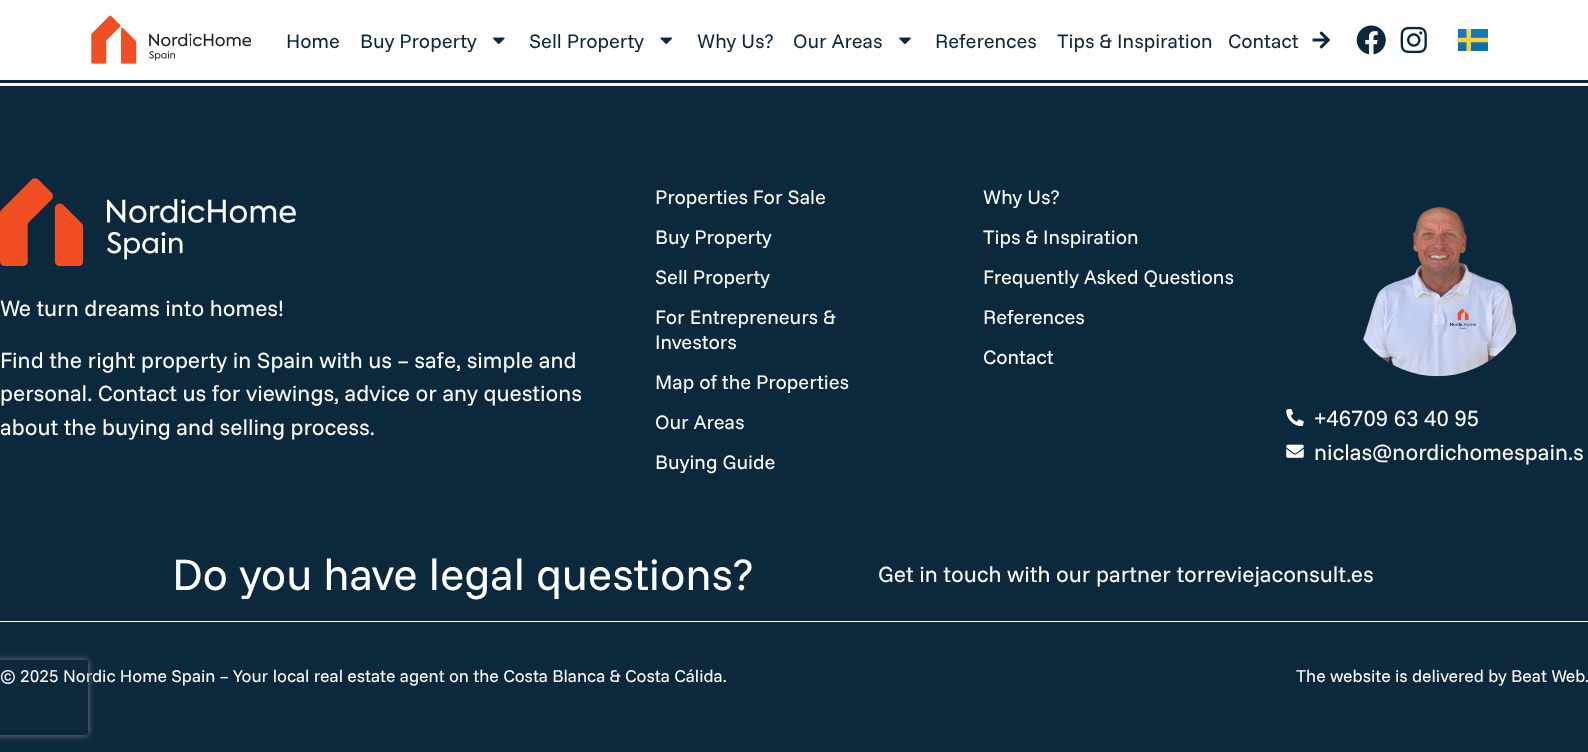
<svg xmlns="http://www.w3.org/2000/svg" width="1588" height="752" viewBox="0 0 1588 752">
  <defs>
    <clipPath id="clip1"><path d="M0 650H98V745H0ZM-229.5 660H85.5C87 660 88 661 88 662.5V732.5C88 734 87 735 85.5 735H-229.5C-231 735-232 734-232 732.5V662.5C-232 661-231 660-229.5 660Z" clip-rule="evenodd"/></clipPath>
    <filter id="blur1" x="-50%" y="-200%" width="200%" height="500%"><feGaussianBlur stdDeviation="3"/></filter>
  </defs>
  <rect width="100%" height="100%" fill="#f5f5f5"/>
  <rect x="0" y="0" width="1588" height="80" fill="#ffffff"/>
  <rect x="0" y="80" width="1588" height="3" fill="#0c283d"/>
  <image x="91" y="15" width="160" height="49" href="img1.png"/>
  <text x="286" y="48" font-family="Funnel Sans" font-size="20" fill="#0c283d">Home</text>
  <text x="360" y="48" font-family="Funnel Sans" font-size="20" fill="#0c283d">Buy Property</text>
  <image x="493" y="37" width="12" height="7" href="img2.png"/>
  <text x="529" y="48" font-family="Funnel Sans" font-size="20" fill="#0c283d">Sell Property</text>
  <image x="660" y="37" width="12" height="7" href="img3.png"/>
  <text x="697" y="48" font-family="Funnel Sans" font-size="20" fill="#0c283d">Why Us?</text>
  <text x="793" y="48" font-family="Funnel Sans" font-size="20" fill="#0c283d">Our Areas</text>
  <image x="899" y="37" width="12" height="7" href="img4.png"/>
  <text x="935" y="48" font-family="Funnel Sans" font-size="20" fill="#0c283d">References</text>
  <text x="1057" y="48" font-family="Funnel Sans" font-size="20" fill="#0c283d">Tips &amp; Inspiration</text>
  <text x="1228" y="48" font-family="Funnel Sans" font-size="20" fill="#0c283d">Contact</text>
  <image x="1312" y="31" width="18" height="18" href="img5.png"/>
  <image x="1356" y="25" width="30" height="30" href="img6.png"/>
  <image x="1400" y="26" width="27" height="28" href="img7.png"/>
  <image x="1458" y="29" width="30" height="22" href="img8.png"/>
  <rect x="0" y="86" width="1588" height="666" fill="#0c283d"/>
  <image x="0" y="178" width="296" height="88" href="img9.png"/>
  <text x="0" y="316" font-family="Funnel Sans" font-size="22.5" fill="#ffffff">We turn dreams into homes!</text>
  <text x="0" y="368" font-family="Funnel Sans" font-size="22.5" fill="#ffffff">Find the right property in Spain with us – safe, simple and</text>
  <text x="0" y="401" font-family="Funnel Sans" font-size="22.5" fill="#ffffff">personal. Contact us for viewings, advice or any questions</text>
  <text x="0" y="435" font-family="Funnel Sans" font-size="22.5" fill="#ffffff">about the buying and selling process.</text>
  <text x="655" y="204" font-family="Funnel Sans" font-size="20" fill="#ffffff">Properties For Sale</text>
  <text x="655" y="244" font-family="Funnel Sans" font-size="20" fill="#ffffff">Buy Property</text>
  <text x="655" y="284" font-family="Funnel Sans" font-size="20" fill="#ffffff">Sell Property</text>
  <text x="655" y="324" font-family="Funnel Sans" font-size="20" fill="#ffffff">For Entrepreneurs &amp;</text>
  <text x="655" y="349" font-family="Funnel Sans" font-size="20" fill="#ffffff">Investors</text>
  <text x="655" y="389" font-family="Funnel Sans" font-size="20" fill="#ffffff">Map of the Properties</text>
  <text x="655" y="429" font-family="Funnel Sans" font-size="20" fill="#ffffff">Our Areas</text>
  <text x="655" y="469" font-family="Funnel Sans" font-size="20" fill="#ffffff">Buying Guide</text>
  <text x="983" y="204" font-family="Funnel Sans" font-size="20" fill="#ffffff">Why Us?</text>
  <text x="983" y="244" font-family="Funnel Sans" font-size="20" fill="#ffffff">Tips &amp; Inspiration</text>
  <text x="983" y="284" font-family="Funnel Sans" font-size="20" fill="#ffffff">Frequently Asked Questions</text>
  <text x="983" y="324" font-family="Funnel Sans" font-size="20" fill="#ffffff">References</text>
  <text x="983" y="364" font-family="Funnel Sans" font-size="20" fill="#ffffff">Contact</text>
  <image x="1363" y="206" width="154" height="171" href="img10.png"/>
  <image x="1286" y="409" width="18" height="17" href="img11.png"/>
  <text x="1314" y="426" font-family="Funnel Sans" font-size="22.5" fill="#ffffff">+46709 63 40 95</text>
  <image x="1286" y="444" width="18" height="14" href="img12.png"/>
  <text x="1314" y="460" font-family="Funnel Sans" font-size="22.5" fill="#ffffff">niclas@nordichomespain.s</text>
  <text x="172" y="590" font-family="Funnel Sans" font-size="45" fill="#ffffff">Do you have legal questions?</text>
  <text x="878" y="582" font-family="Funnel Sans" font-size="22.5" fill="#ffffff">Get in touch with our partner torreviejaconsult.es</text>
  <rect x="0" y="621" width="1588" height="1" fill="#ffffff"/>
  <text x="0" y="682" font-family="Funnel Sans" font-size="17.5" fill="#ffffff">© 2025 Nordic Home Spain – Your local real estate agent on the Costa Blanca &amp; Costa Cálida.</text>
  <text x="1296" y="682" font-family="Funnel Sans" font-size="17.5" fill="#ffffff">The website is delivered by Beat Web.</text>
  <g clip-path="url(#clip1)">
    <rect x="-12" y="660" width="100" height="75" rx="2.5" fill="#808080" filter="url(#blur1)"/>
  </g>
</svg>
